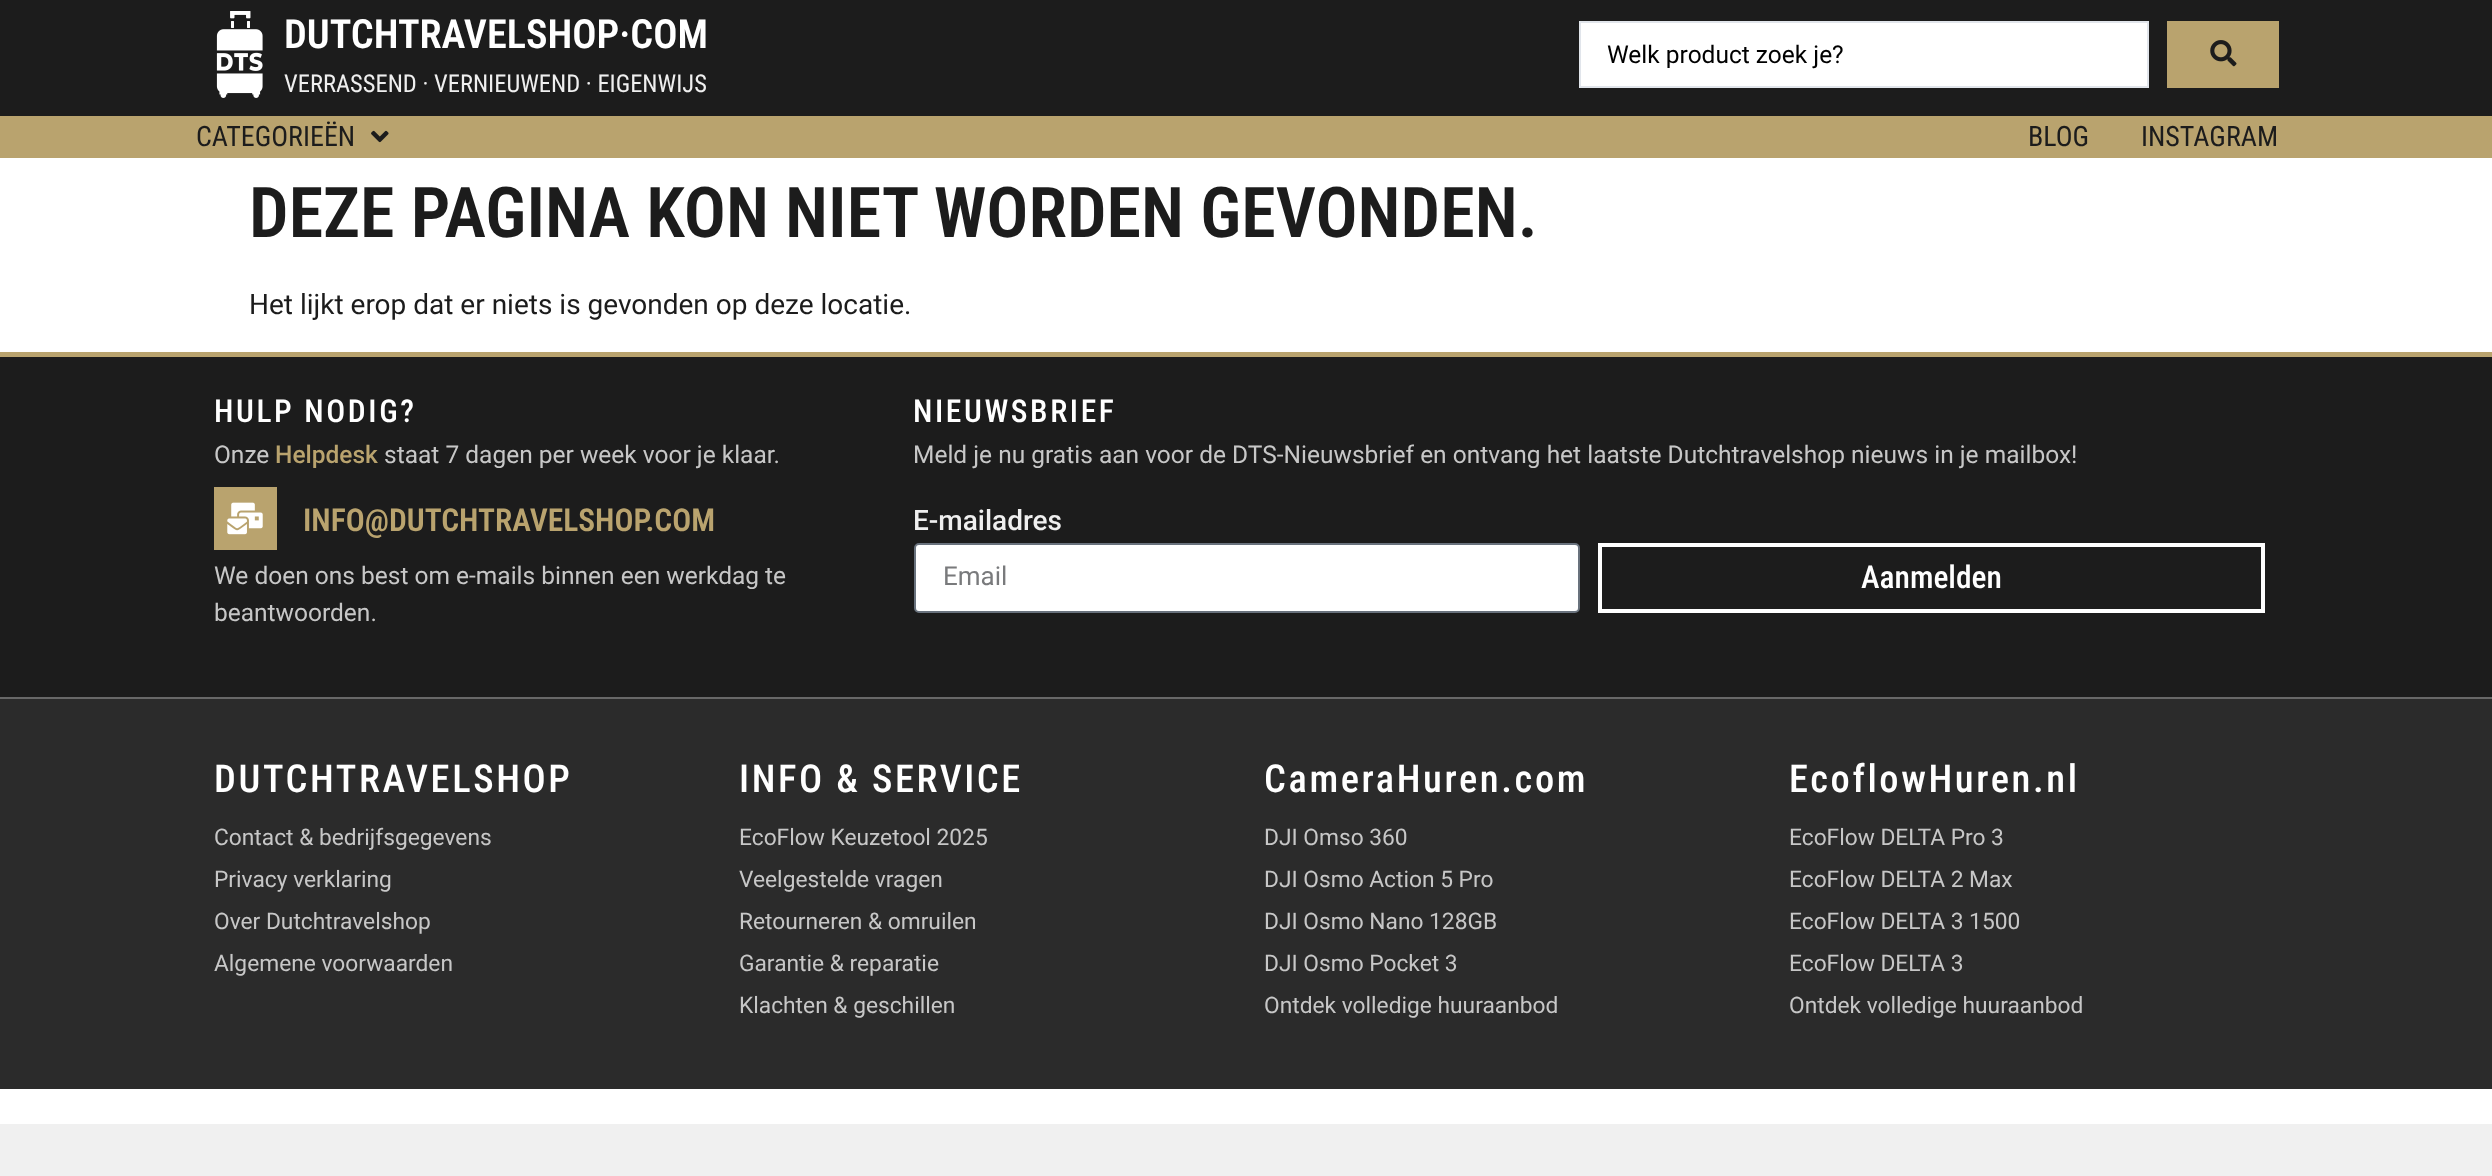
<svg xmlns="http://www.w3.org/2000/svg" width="2492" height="1176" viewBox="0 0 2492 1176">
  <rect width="100%" height="100%" fill="#ffffff"/>
  <rect x="0" y="0" width="2492" height="116" fill="#1c1c1c"/>
  <image x="216" y="11" width="47" height="87" href="img1.png"/>
  <text x="284" y="48" font-family="Roboto Condensed" font-size="40.25" font-weight="600" fill="#ffffff">DUTCHTRAVELSHOP·COM</text>
  <text x="284" y="92" font-family="Roboto Condensed" font-size="24.5" fill="#efefef">VERRASSEND · VERNIEUWEND · EIGENWIJS</text>
  <rect x="1580" y="22" width="568" height="65" fill="#ffffff" stroke="#e1e5eb" stroke-width="2"/>
  <text x="1607" y="63" font-family="Roboto" font-size="24.5" fill="#000000">Welk product zoek je?</text>
  <rect x="2167" y="21" width="112" height="67" fill="#b9a36e"/>
  <image x="2210" y="40" width="27" height="27" href="img2.png"/>
  <rect x="0" y="116" width="2492" height="42" fill="#b9a36e"/>
  <text x="196" y="146" font-family="Roboto Condensed" font-size="28" fill="#1c1c1c">CATEGORIEËN</text>
  <image x="371" y="130" width="18" height="13" href="img3.png"/>
  <text x="2028" y="146" font-family="Roboto Condensed" font-size="28" fill="#1c1c1c">BLOG</text>
  <text x="2141" y="146" font-family="Roboto Condensed" font-size="28" fill="#1c1c1c">INSTAGRAM</text>
  <text x="249" y="237" font-family="Roboto Condensed" font-size="70" font-weight="600" fill="#1c1c1c">DEZE PAGINA KON NIET WORDEN GEVONDEN.</text>
  <text x="249" y="314" font-family="Roboto" font-size="28" fill="#1c1c1c">Het lijkt erop dat er niets is gevonden op deze locatie.</text>
  <rect x="0" y="357" width="2492" height="340" fill="#1c1c1c"/>
  <rect x="0" y="352" width="2492" height="5" fill="#b9a36e"/>
  <text x="214" y="422" font-family="Roboto Condensed" font-size="31.5" font-weight="500" letter-spacing="2.6" fill="#ffffff">HULP NODIG?</text>
  <text x="214" y="463" font-family="Roboto" font-size="24.5" fill="#c7c7c7">Onze</text>
  <text x="275" y="463" font-family="Roboto" font-size="24.5" font-weight="500" fill="#b9a36e">Helpdesk</text>
  <text x="384" y="463" font-family="Roboto" font-size="24.5" fill="#c7c7c7">staat 7 dagen per week voor je klaar.</text>
  <rect x="214" y="487" width="63" height="63" fill="#b9a36e"/>
  <image x="227" y="502" width="36" height="33" href="img4.png"/>
  <text x="303" y="531" font-family="Roboto Condensed" font-size="31.5" font-weight="600" fill="#b9a36e">INFO@DUTCHTRAVELSHOP.COM</text>
  <text x="214" y="584" font-family="Roboto" font-size="24.5" fill="#c7c7c7">We doen ons best om e-mails binnen een werkdag te</text>
  <text x="214" y="621" font-family="Roboto" font-size="24.5" fill="#c7c7c7">beantwoorden.</text>
  <text x="913" y="422" font-family="Roboto Condensed" font-size="31.5" font-weight="500" letter-spacing="2.6" fill="#ffffff">NIEUWSBRIEF</text>
  <text x="913" y="463" font-family="Roboto" font-size="24.5" fill="#c7c7c7">Meld je nu gratis aan voor de DTS-Nieuwsbrief en ontvang het laatste Dutchtravelshop nieuws in je mailbox!</text>
  <text x="913" y="530" font-family="Roboto" font-size="28" font-weight="500" fill="#efefef">E-mailadres</text>
  <rect x="915" y="544" width="664" height="68" rx="4" fill="#ffffff" stroke="#69727d" stroke-width="2"/>
  <text x="943" y="585" font-family="Roboto" font-size="26" fill="#797a7c">Email</text>
  <rect x="1600" y="545" width="663" height="66" fill="none" stroke="#ffffff" stroke-width="4"/>
  <text x="1861" y="588" font-family="Roboto Condensed" font-size="31.5" font-weight="500" fill="#ffffff">Aanmelden</text>
  <rect x="0" y="699" width="2492" height="390" fill="#2b2b2b"/>
  <rect x="0" y="697" width="2492" height="2" fill="#686868"/>
  <text x="214" y="792" font-family="Roboto Condensed" font-size="38.5" font-weight="500" letter-spacing="2.6" fill="#ffffff">DUTCHTRAVELSHOP</text>
  <text x="214" y="845" font-family="Roboto" font-size="22.75" fill="#c7c7c7">Contact &amp; bedrijfsgegevens</text>
  <text x="214" y="887" font-family="Roboto" font-size="22.75" fill="#c7c7c7">Privacy verklaring</text>
  <text x="214" y="929" font-family="Roboto" font-size="22.75" fill="#c7c7c7">Over Dutchtravelshop</text>
  <text x="214" y="971" font-family="Roboto" font-size="22.75" fill="#c7c7c7">Algemene voorwaarden</text>
  <text x="739" y="792" font-family="Roboto Condensed" font-size="38.5" font-weight="500" letter-spacing="2.6" fill="#ffffff">INFO &amp; SERVICE</text>
  <text x="739" y="845" font-family="Roboto" font-size="22.75" fill="#c7c7c7">EcoFlow Keuzetool 2025</text>
  <text x="739" y="887" font-family="Roboto" font-size="22.75" fill="#c7c7c7">Veelgestelde vragen</text>
  <text x="739" y="929" font-family="Roboto" font-size="22.75" fill="#c7c7c7">Retourneren &amp; omruilen</text>
  <text x="739" y="971" font-family="Roboto" font-size="22.75" fill="#c7c7c7">Garantie &amp; reparatie</text>
  <text x="739" y="1013" font-family="Roboto" font-size="22.75" fill="#c7c7c7">Klachten &amp; geschillen</text>
  <text x="1264" y="792" font-family="Roboto Condensed" font-size="38.5" font-weight="500" letter-spacing="2.6" fill="#ffffff">CameraHuren.com</text>
  <text x="1264" y="845" font-family="Roboto" font-size="22.75" fill="#c7c7c7">DJI Omso 360</text>
  <text x="1264" y="887" font-family="Roboto" font-size="22.75" fill="#c7c7c7">DJI Osmo Action 5 Pro</text>
  <text x="1264" y="929" font-family="Roboto" font-size="22.75" fill="#c7c7c7">DJI Osmo Nano 128GB</text>
  <text x="1264" y="971" font-family="Roboto" font-size="22.75" fill="#c7c7c7">DJI Osmo Pocket 3</text>
  <text x="1264" y="1013" font-family="Roboto" font-size="22.75" fill="#c7c7c7">Ontdek volledige huuraanbod</text>
  <text x="1789" y="792" font-family="Roboto Condensed" font-size="38.5" font-weight="500" letter-spacing="2.6" fill="#ffffff">EcoflowHuren.nl</text>
  <text x="1789" y="845" font-family="Roboto" font-size="22.75" fill="#c7c7c7">EcoFlow DELTA Pro 3</text>
  <text x="1789" y="887" font-family="Roboto" font-size="22.75" fill="#c7c7c7">EcoFlow DELTA 2 Max</text>
  <text x="1789" y="929" font-family="Roboto" font-size="22.75" fill="#c7c7c7">EcoFlow DELTA 3 1500</text>
  <text x="1789" y="971" font-family="Roboto" font-size="22.75" fill="#c7c7c7">EcoFlow DELTA 3</text>
  <text x="1789" y="1013" font-family="Roboto" font-size="22.75" fill="#c7c7c7">Ontdek volledige huuraanbod</text>
  <rect x="0" y="1124" width="2492" height="52" fill="#f0f0f0"/>
</svg>
